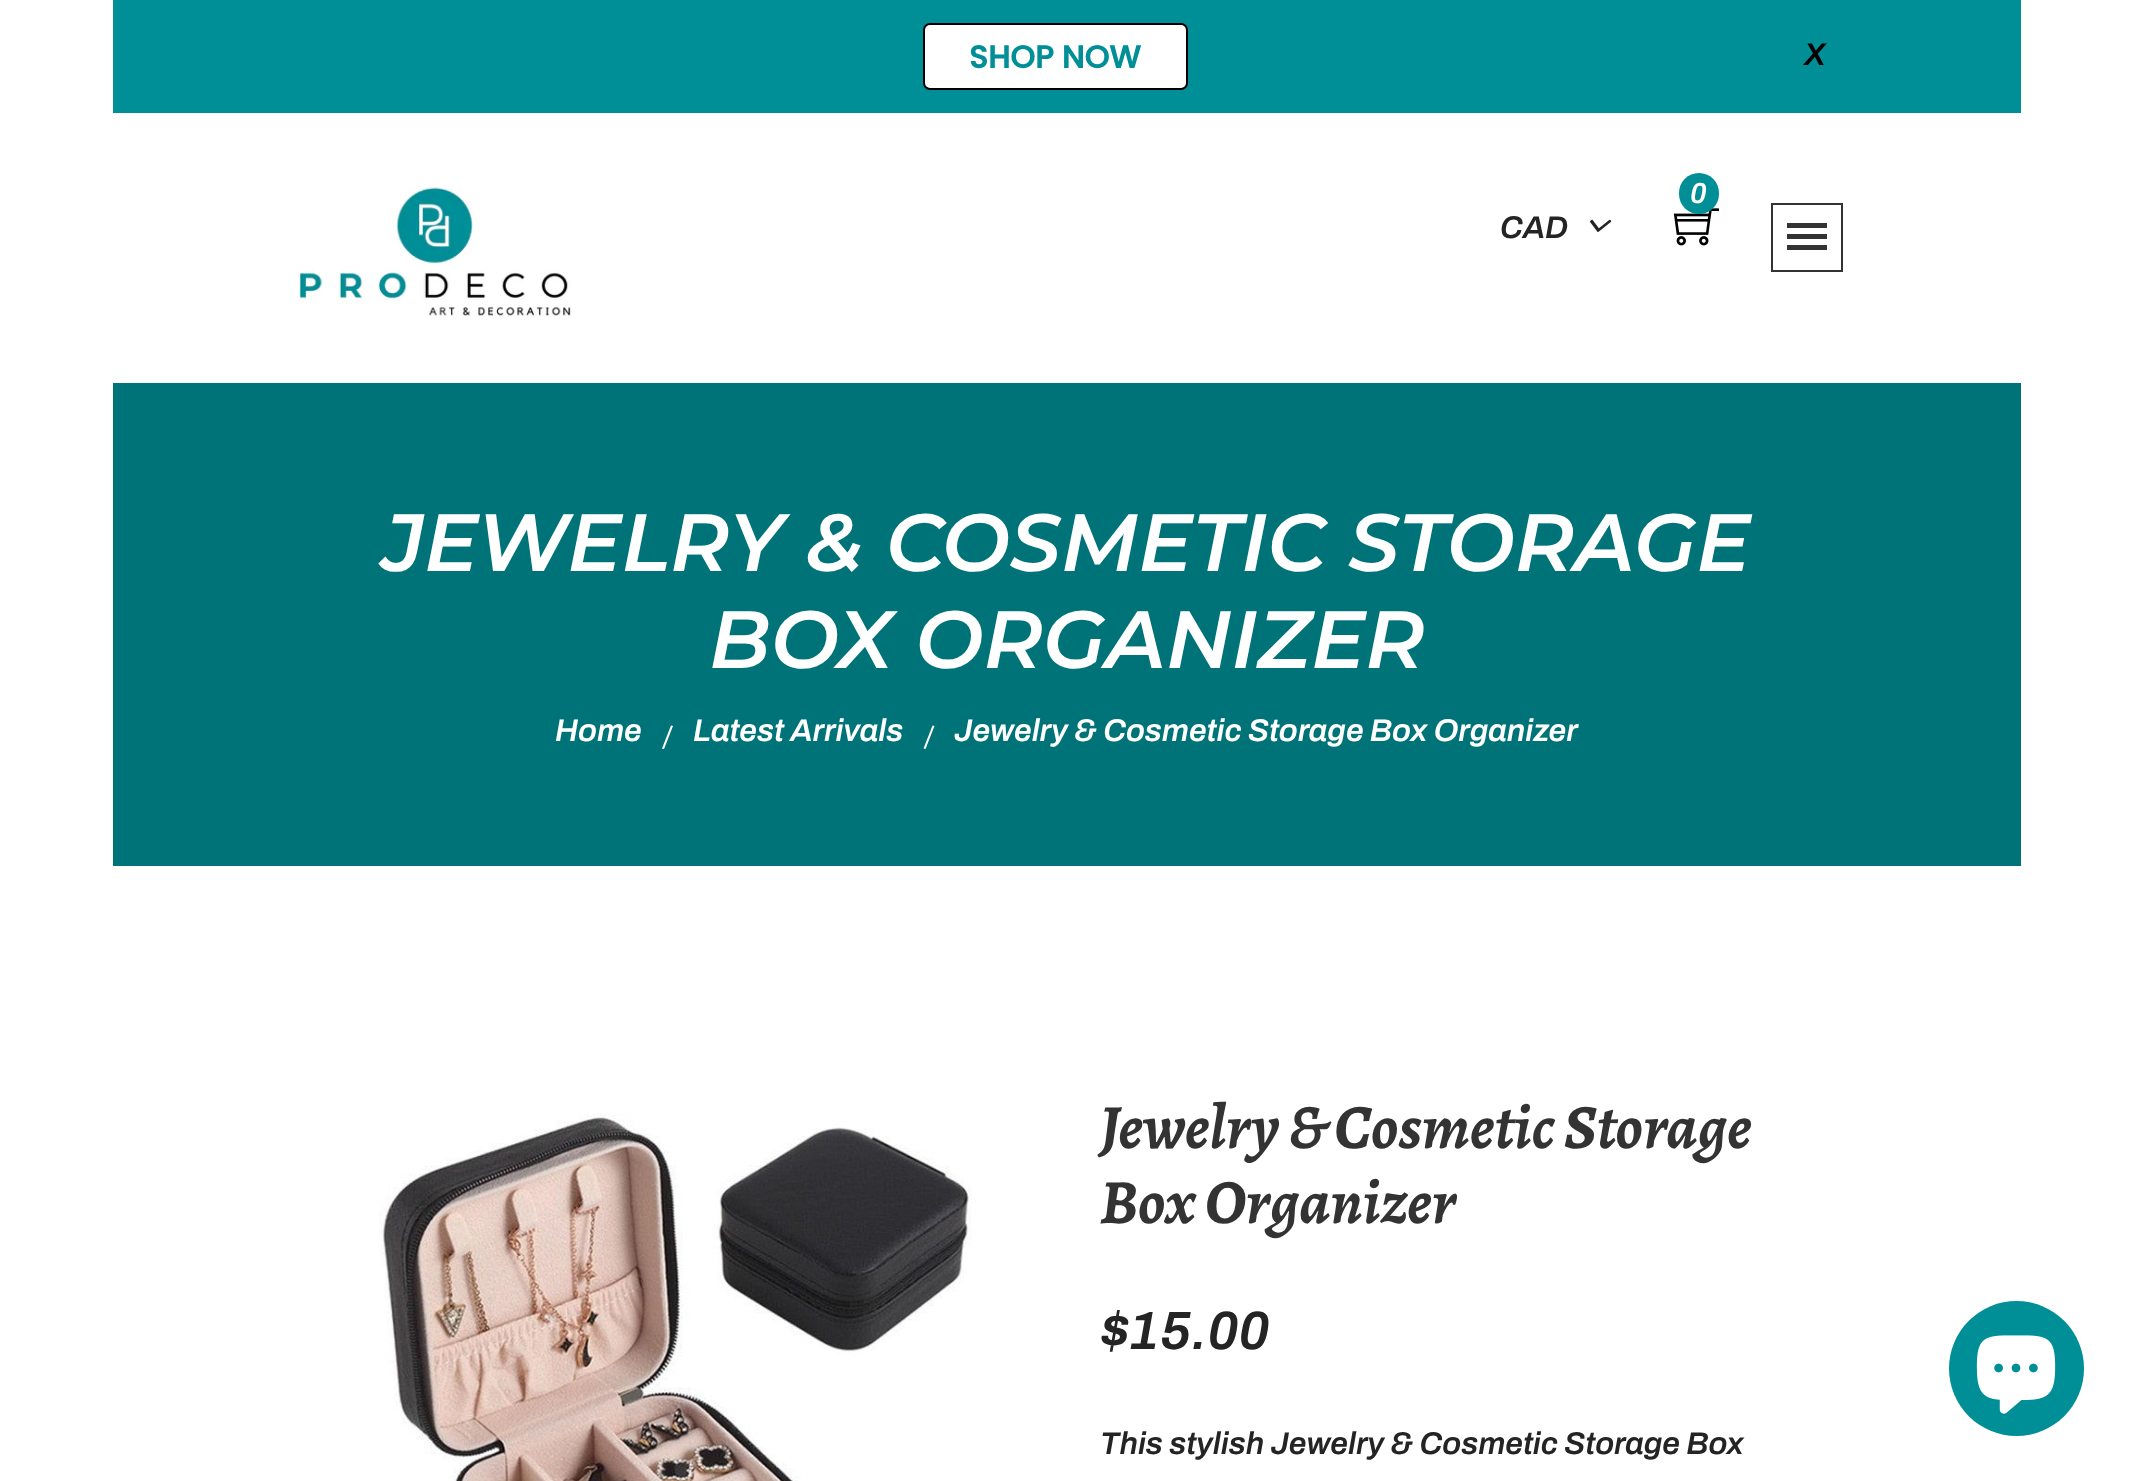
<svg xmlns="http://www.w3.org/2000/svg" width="2132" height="1481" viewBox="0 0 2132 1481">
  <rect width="100%" height="100%" fill="#ffffff"/>
  <rect x="113" y="0" width="1908" height="113" fill="#008e97"/>
  <rect x="924" y="24" width="263" height="65" rx="6" fill="#ffffff" stroke="#000000" stroke-width="2"/>
  <text x="969" y="68" font-family="Poppins" font-size="31.5" font-weight="bold" fill="#008e97">SHOP NOW</text>
  <text x="1804" y="65" font-family="Archivo" font-size="31.5" font-weight="600" font-style="italic" fill="#000000">X</text>
  <image x="298" y="187" width="273" height="129" href="img1.png"/>
  <image x="1673" y="208" width="46" height="38" href="img2.png"/>
  <rect x="1679" y="173" width="40" height="41" rx="20" fill="#008e97"/>
  <text x="1690" y="203" font-family="Archivo" font-size="29" font-weight="600" font-style="italic" fill="#ffffff">0</text>
  <text x="1500" y="238" font-family="Archivo" font-size="31.5" font-weight="600" font-style="italic" fill="#242424">CAD</text>
  <image x="1589" y="219" width="23" height="13" href="img3.png"/>
  <rect x="1772" y="204" width="70" height="67" fill="none" stroke="#333333" stroke-width="2"/>
  <rect x="1787" y="223" width="40" height="5" fill="#333333"/>
  <rect x="1787" y="234" width="40" height="5" fill="#333333"/>
  <rect x="1787" y="245" width="40" height="5" fill="#333333"/>
  <rect x="113" y="383" width="1908" height="483" fill="#007379"/>
  <text x="382" y="571" font-family="Montserrat" font-size="81" font-weight="600" font-style="italic" fill="#ffffff">JEWELRY &amp; COSMETIC STORAGE</text>
  <text x="709" y="668" font-family="Montserrat" font-size="81" font-weight="600" font-style="italic" fill="#ffffff">BOX ORGANIZER</text>
  <text x="555" y="741" font-family="Archivo" font-size="31.5" font-weight="600" font-style="italic" fill="#ffffff">Home</text>
  <path d="M662 748.5L671 725.5L673 726L664 749Z" fill="#ffffff"/>
  <text x="693" y="741" font-family="Archivo" font-size="31.5" font-weight="600" font-style="italic" fill="#ffffff">Latest Arrivals</text>
  <path d="M923.5 748.5L932.5 725.5L934.5 726L925.5 749Z" fill="#ffffff"/>
  <text x="954" y="741" font-family="Archivo" font-size="31.5" font-weight="600" font-style="italic" fill="#ffffff">Jewelry &amp; Cosmetic Storage Box Organizer</text>
  <image x="379" y="1113" width="593" height="368" href="img4.png"/>
  <text x="1100" y="1148" font-family="Alegreya" font-size="63" font-weight="bold" font-style="italic" fill="#333333">Jewelry &amp; Cosmetic Storage</text>
  <text x="1100" y="1223" font-family="Alegreya" font-size="63" font-weight="bold" font-style="italic" fill="#333333">Box Organizer</text>
  <text x="1100" y="1349" font-family="Archivo" font-size="54" font-weight="600" font-style="italic" fill="#242424">$15.00</text>
  <text x="1100" y="1454" font-family="Archivo" font-size="31.5" font-weight="600" font-style="italic" fill="#242424">This stylish Jewelry &amp; Cosmetic Storage Box</text>
  <circle cx="2016.5" cy="1368.5" r="67.5" fill="#008e97"/>
  <image x="1976" y="1335" width="80" height="79" href="img5.png"/>
</svg>
